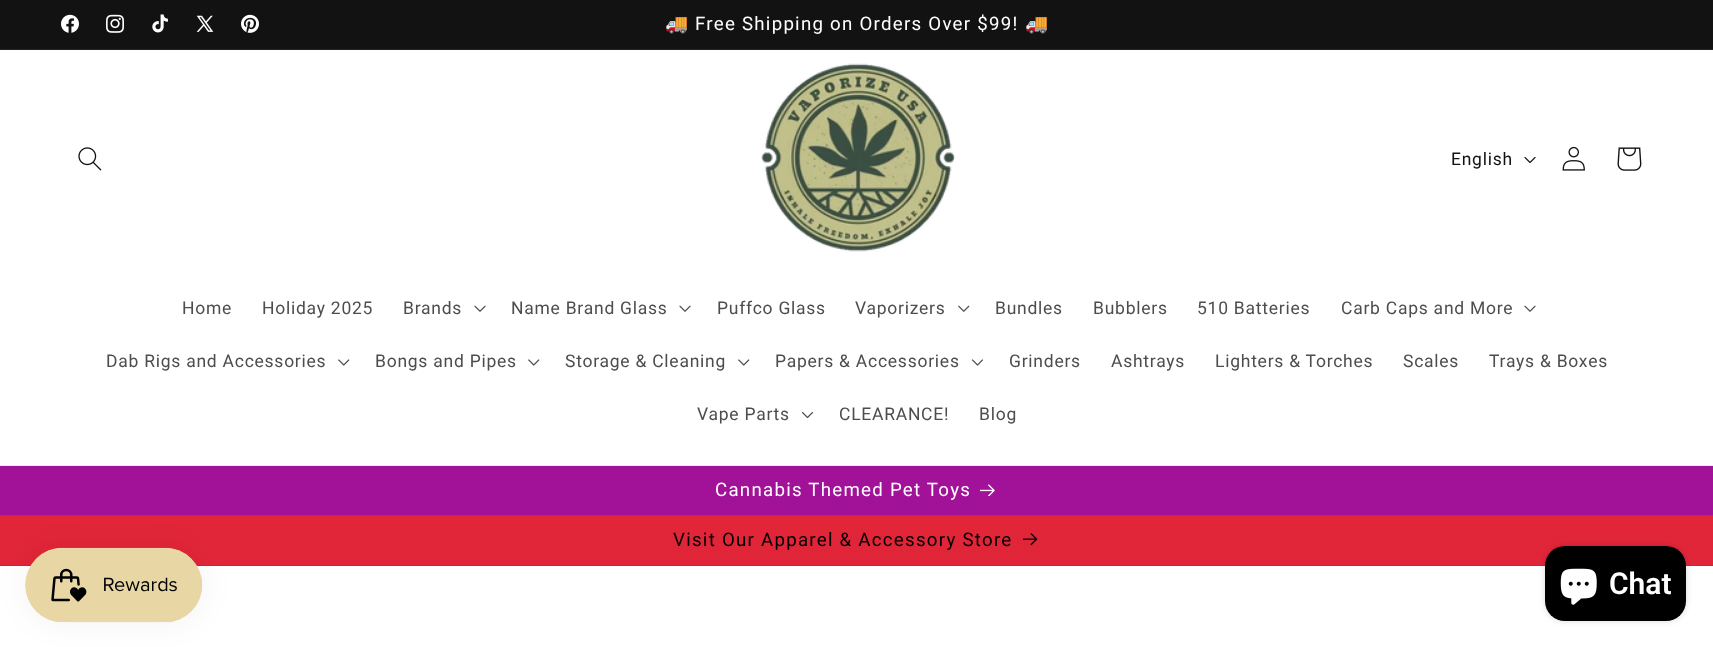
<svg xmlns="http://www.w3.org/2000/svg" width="1713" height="647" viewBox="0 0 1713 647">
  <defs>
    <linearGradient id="g1" gradientUnits="userSpaceOnUse" x1="857" y1="0" x2="857" y2="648"><stop offset="0" stop-color="#f71c33"/><stop offset="1" stop-color="#dd2739"/></linearGradient>
    <filter id="blur1" x="-50%" y="-200%" width="200%" height="500%"><feGaussianBlur stdDeviation="15.5"/></filter>
    <filter id="blur2" x="-50%" y="-200%" width="200%" height="500%"><feGaussianBlur stdDeviation="3"/></filter>
  </defs>
  <rect width="100%" height="100%" fill="#ffffff"/>
  <rect x="0" y="0" width="1713" height="49" fill="#121212"/>
  <rect x="0" y="49" width="1713" height="1" fill="#252525"/>
  <image x="61" y="14" width="18" height="19" href="img1.png"/>
  <image x="106" y="14" width="18" height="19" href="img2.png"/>
  <image x="152" y="14" width="16" height="19" href="img3.png"/>
  <image x="196" y="15" width="18" height="17" href="img4.png"/>
  <image x="241" y="14" width="18" height="19" href="img5.png"/>
  <text x="665" y="30" font-family="Noto Color Emoji" font-size="18.7" letter-spacing="1.25" fill="#ffffff">🚚</text>
  <text x="695" y="30" font-family="Roboto" font-size="18.7" letter-spacing="1.25" fill="#ffffff">Free Shipping on Orders Over $99!</text>
  <text x="1025" y="30" font-family="Noto Color Emoji" font-size="18.7" letter-spacing="1.25" fill="#ffffff">🚚</text>
  <rect x="0" y="465" width="1713" height="1" fill="#ececec"/>
  <image x="78" y="147" width="24" height="24" href="img6.png"/>
  <image x="761" y="63" width="194" height="189" href="img7.png"/>
  <text x="1451" y="165" font-family="Roboto" font-size="17.5" letter-spacing="0.75" fill="#121212">English</text>
  <image x="1524" y="157" width="12" height="6" href="img8.png"/>
  <image x="1562" y="146" width="23" height="25" href="img9.png"/>
  <image x="1617" y="147" width="25" height="24" href="img10.png"/>
  <text x="182" y="314" font-family="Roboto" font-size="17.5" letter-spacing="0.75" fill="#4d4d4d">Home</text>
  <text x="262" y="314" font-family="Roboto" font-size="17.5" letter-spacing="0.75" fill="#4d4d4d">Holiday 2025</text>
  <text x="403" y="314" font-family="Roboto" font-size="17.5" letter-spacing="0.75" fill="#4d4d4d">Brands</text>
  <image x="474" y="305" width="12" height="7" href="img11.png"/>
  <text x="511" y="314" font-family="Roboto" font-size="17.5" letter-spacing="0.75" fill="#4d4d4d">Name Brand Glass</text>
  <image x="679" y="305" width="12" height="7" href="img11.png"/>
  <text x="717" y="314" font-family="Roboto" font-size="17.5" letter-spacing="0.75" fill="#4d4d4d">Puffco Glass</text>
  <text x="855" y="314" font-family="Roboto" font-size="17.5" letter-spacing="0.75" fill="#4d4d4d">Vaporizers</text>
  <image x="958" y="305" width="12" height="7" href="img12.png"/>
  <text x="995" y="314" font-family="Roboto" font-size="17.5" letter-spacing="0.75" fill="#4d4d4d">Bundles</text>
  <text x="1093" y="314" font-family="Roboto" font-size="17.5" letter-spacing="0.75" fill="#4d4d4d">Bubblers</text>
  <text x="1197" y="314" font-family="Roboto" font-size="17.5" letter-spacing="0.75" fill="#4d4d4d">510 Batteries</text>
  <text x="1341" y="314" font-family="Roboto" font-size="17.5" letter-spacing="0.75" fill="#4d4d4d">Carb Caps and More</text>
  <image x="1524" y="305" width="12" height="7" href="img11.png"/>
  <text x="106" y="367" font-family="Roboto" font-size="17.5" letter-spacing="0.75" fill="#4d4d4d">Dab Rigs and Accessories</text>
  <image x="338" y="359" width="12" height="7" href="img13.png"/>
  <text x="375" y="367" font-family="Roboto" font-size="17.5" letter-spacing="0.75" fill="#4d4d4d">Bongs and Pipes</text>
  <image x="528" y="359" width="12" height="7" href="img13.png"/>
  <text x="565" y="367" font-family="Roboto" font-size="17.5" letter-spacing="0.75" fill="#4d4d4d">Storage &amp; Cleaning</text>
  <image x="738" y="359" width="12" height="7" href="img13.png"/>
  <text x="775" y="367" font-family="Roboto" font-size="17.5" letter-spacing="0.75" fill="#4d4d4d">Papers &amp; Accessories</text>
  <image x="972" y="359" width="11" height="7" href="img14.png"/>
  <text x="1009" y="367" font-family="Roboto" font-size="17.5" letter-spacing="0.75" fill="#4d4d4d">Grinders</text>
  <text x="1111" y="367" font-family="Roboto" font-size="17.5" letter-spacing="0.75" fill="#4d4d4d">Ashtrays</text>
  <text x="1215" y="367" font-family="Roboto" font-size="17.5" letter-spacing="0.75" fill="#4d4d4d">Lighters &amp; Torches</text>
  <text x="1403" y="367" font-family="Roboto" font-size="17.5" letter-spacing="0.75" fill="#4d4d4d">Scales</text>
  <text x="1489" y="367" font-family="Roboto" font-size="17.5" letter-spacing="0.75" fill="#4d4d4d">Trays &amp; Boxes</text>
  <text x="697" y="420" font-family="Roboto" font-size="17.5" letter-spacing="0.75" fill="#4d4d4d">Vape Parts</text>
  <image x="801" y="411" width="13" height="8" href="img15.png"/>
  <text x="839" y="420" font-family="Roboto" font-size="17.5" letter-spacing="0.75" fill="#4d4d4d">CLEARANCE!</text>
  <text x="979" y="420" font-family="Roboto" font-size="17.5" letter-spacing="0.75" fill="#4d4d4d">Blog</text>
  <rect x="0" y="466" width="1713" height="49" fill="#a21299"/>
  <rect x="0" y="515" width="1713" height="1" fill="#a925a1"/>
  <text x="715" y="496" font-family="Roboto" font-size="18.7" letter-spacing="1.25" fill="#ffffff">Cannabis Themed Pet Toys</text>
  <image x="980" y="484" width="15" height="12" href="img16.png"/>
  <rect x="0" y="516" width="1713" height="49" fill="url(#g1)"/>
  <rect x="0" y="565" width="1713" height="1" fill="#ce2334"/>
  <rect x="25" y="548" width="178" height="75" rx="37.5" fill="#000000" fill-opacity="0.05" filter="url(#blur1)"/>
  <image x="25" y="547" width="178" height="76" href="img17.png"/>
  <text x="673" y="546" font-family="Roboto" font-size="18.7" letter-spacing="1.25" fill="#000000">Visit Our Apparel &amp; Accessory Store</text>
  <image x="1023" y="533" width="15" height="13" href="img18.png"/>
  <rect x="1545" y="546" width="141" height="75" rx="20" fill="#000000" fill-opacity="0.15" filter="url(#blur2)"/>
  <rect x="1545" y="546" width="141" height="75" rx="20" fill="#000000"/>
  <image x="1560" y="568" width="37" height="37" href="img19.png"/>
  <text x="1609" y="594" font-family="Roboto" font-size="30" font-weight="600" fill="#ffffff">Chat</text>
</svg>
